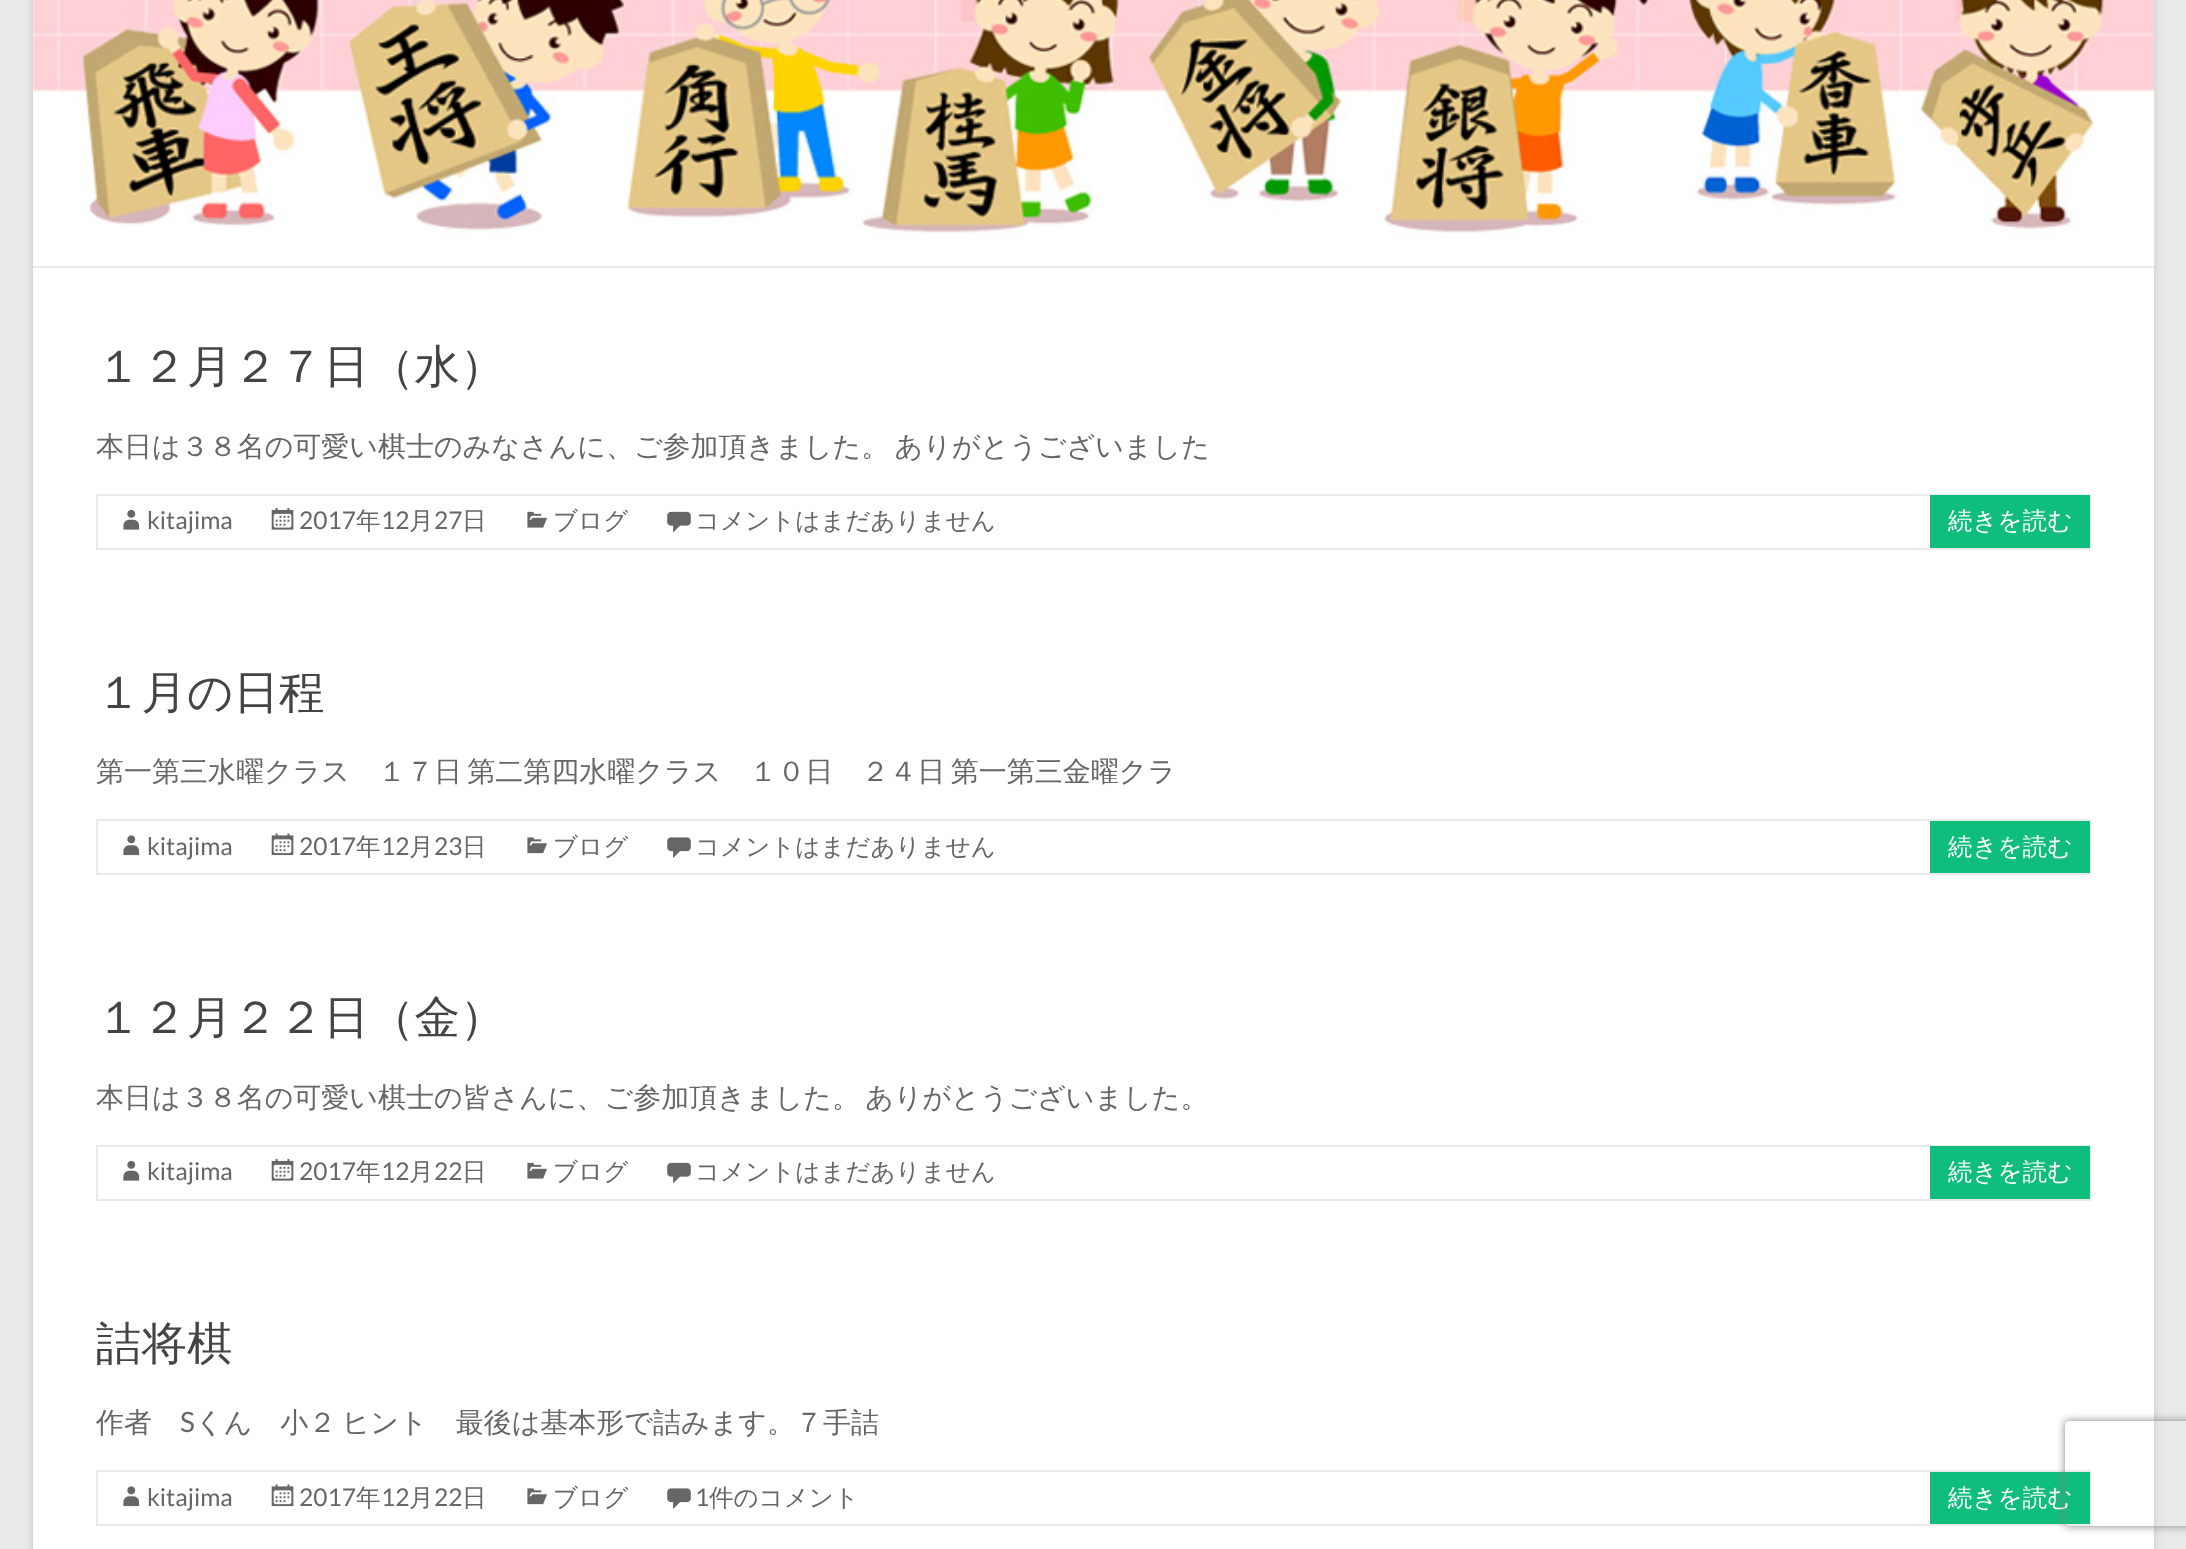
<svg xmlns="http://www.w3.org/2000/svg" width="2186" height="1549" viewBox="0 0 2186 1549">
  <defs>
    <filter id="blur1" x="-50%" y="-200%" width="200%" height="500%"><feGaussianBlur stdDeviation="5"/></filter>
    <clipPath id="clip1"><path d="M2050 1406H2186V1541H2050ZM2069 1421H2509C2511 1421 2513 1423 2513 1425V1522C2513 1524 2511 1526 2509 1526H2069C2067 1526 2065 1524 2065 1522V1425C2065 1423 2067 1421 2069 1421Z" clip-rule="evenodd"/></clipPath>
    <filter id="blur2" x="-50%" y="-200%" width="200%" height="500%"><feGaussianBlur stdDeviation="4.5"/></filter>
  </defs>
  <rect width="100%" height="100%" fill="#eaeaea"/>
  <rect x="33" y="-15" width="2121" height="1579" fill="#646464" fill-opacity="0.3" filter="url(#blur1)"/>
  <rect x="33" y="0" width="2121" height="1549" fill="#ffffff"/>
  <image x="33" y="0" width="2122" height="266" href="img1.png"/>
  <rect x="33" y="266" width="2121" height="2" fill="#eaeaea"/>
  <text x="96" y="382" font-family="WenQuanYi Zen Hei" font-size="45.5" font-weight="500" fill="#444444">１２月２７日（水）</text>
  <text x="96" y="456" word-spacing="-3" font-family="WenQuanYi Zen Hei" font-size="28" font-weight="500" fill="#666666">本日は３８名の可愛い棋士のみなさんに、ご参加頂きました。 ありがとうございました</text>
  <rect x="97" y="495" width="1993" height="54" fill="none" stroke="#eaeaea" stroke-width="2"/>
  <image x="123" y="509" width="17" height="21" href="img2.png"/>
  <text x="147" y="529" font-family="Lato" font-size="24.5" fill="#666666">kitajima</text>
  <image x="271" y="507" width="23" height="23" href="img3.png"/>
  <text x="299" y="529" font-family="Lato" font-size="24.5" fill="#666666">2017</text>
  <text x="356" y="529" font-family="WenQuanYi Zen Hei" font-size="24.5" font-weight="500" fill="#666666">年</text>
  <text x="381" y="529" font-family="Lato" font-size="24.5" fill="#666666">12</text>
  <text x="409" y="529" font-family="WenQuanYi Zen Hei" font-size="24.5" font-weight="500" fill="#666666">月</text>
  <text x="434" y="529" font-family="Lato" font-size="24.5" fill="#666666">27</text>
  <text x="462" y="529" font-family="WenQuanYi Zen Hei" font-size="24.5" font-weight="500" fill="#666666">日</text>
  <image x="527" y="511" width="20" height="17" href="img4.png"/>
  <text x="553" y="529" font-family="WenQuanYi Zen Hei" font-size="24.5" font-weight="500" fill="#666666">ブログ</text>
  <image x="667" y="511" width="24" height="22" href="img5.png"/>
  <text x="695" y="529" font-family="WenQuanYi Zen Hei" font-size="24.5" font-weight="500" fill="#666666">コメントはまだありません</text>
  <rect x="1930" y="495" width="160" height="53" fill="#0fbe7c"/>
  <text x="1948" y="529" font-family="WenQuanYi Zen Hei" font-size="24.5" font-weight="500" fill="#ffffff">続きを読む</text>
  <text x="96" y="708" font-family="WenQuanYi Zen Hei" font-size="45.5" font-weight="500" fill="#444444">１月の日程</text>
  <text x="96" y="781" word-spacing="-3" font-family="WenQuanYi Zen Hei" font-size="28" font-weight="500" fill="#666666">第一第三水曜クラス　１７日 第二第四水曜クラス　１０日　２４日 第一第三金曜クラ</text>
  <rect x="97" y="820" width="1993" height="54" fill="none" stroke="#eaeaea" stroke-width="2"/>
  <image x="123" y="835" width="17" height="21" href="img6.png"/>
  <text x="147" y="855" font-family="Lato" font-size="24.5" fill="#666666">kitajima</text>
  <image x="271" y="833" width="23" height="23" href="img7.png"/>
  <text x="299" y="855" font-family="Lato" font-size="24.5" fill="#666666">2017</text>
  <text x="356" y="855" font-family="WenQuanYi Zen Hei" font-size="24.5" font-weight="500" fill="#666666">年</text>
  <text x="381" y="855" font-family="Lato" font-size="24.5" fill="#666666">12</text>
  <text x="409" y="855" font-family="WenQuanYi Zen Hei" font-size="24.5" font-weight="500" fill="#666666">月</text>
  <text x="434" y="855" font-family="Lato" font-size="24.5" fill="#666666">23</text>
  <text x="462" y="855" font-family="WenQuanYi Zen Hei" font-size="24.5" font-weight="500" fill="#666666">日</text>
  <image x="527" y="837" width="20" height="17" href="img8.png"/>
  <text x="553" y="855" font-family="WenQuanYi Zen Hei" font-size="24.5" font-weight="500" fill="#666666">ブログ</text>
  <image x="667" y="837" width="24" height="21" href="img9.png"/>
  <text x="695" y="855" font-family="WenQuanYi Zen Hei" font-size="24.5" font-weight="500" fill="#666666">コメントはまだありません</text>
  <rect x="1930" y="821" width="160" height="52" fill="#0fbe7c"/>
  <text x="1948" y="855" font-family="WenQuanYi Zen Hei" font-size="24.5" font-weight="500" fill="#ffffff">続きを読む</text>
  <text x="96" y="1033" font-family="WenQuanYi Zen Hei" font-size="45.5" font-weight="500" fill="#444444">１２月２２日（金）</text>
  <text x="96" y="1107" word-spacing="-3" font-family="WenQuanYi Zen Hei" font-size="28" font-weight="500" fill="#666666">本日は３８名の可愛い棋士の皆さんに、ご参加頂きました。 ありがとうございました。</text>
  <rect x="97" y="1146" width="1993" height="54" fill="none" stroke="#eaeaea" stroke-width="2"/>
  <image x="123" y="1160" width="17" height="21" href="img2.png"/>
  <text x="147" y="1180" font-family="Lato" font-size="24.5" fill="#666666">kitajima</text>
  <image x="271" y="1158" width="23" height="23" href="img3.png"/>
  <text x="299" y="1180" font-family="Lato" font-size="24.5" fill="#666666">2017</text>
  <text x="356" y="1180" font-family="WenQuanYi Zen Hei" font-size="24.5" font-weight="500" fill="#666666">年</text>
  <text x="381" y="1180" font-family="Lato" font-size="24.5" fill="#666666">12</text>
  <text x="409" y="1180" font-family="WenQuanYi Zen Hei" font-size="24.5" font-weight="500" fill="#666666">月</text>
  <text x="434" y="1180" font-family="Lato" font-size="24.5" fill="#666666">22</text>
  <text x="462" y="1180" font-family="WenQuanYi Zen Hei" font-size="24.5" font-weight="500" fill="#666666">日</text>
  <image x="527" y="1162" width="20" height="17" href="img4.png"/>
  <text x="553" y="1180" font-family="WenQuanYi Zen Hei" font-size="24.5" font-weight="500" fill="#666666">ブログ</text>
  <image x="667" y="1162" width="24" height="22" href="img5.png"/>
  <text x="695" y="1180" font-family="WenQuanYi Zen Hei" font-size="24.5" font-weight="500" fill="#666666">コメントはまだありません</text>
  <rect x="1930" y="1146" width="160" height="53" fill="#0fbe7c"/>
  <text x="1948" y="1180" font-family="WenQuanYi Zen Hei" font-size="24.5" font-weight="500" fill="#ffffff">続きを読む</text>
  <text x="96" y="1359" font-family="WenQuanYi Zen Hei" font-size="45.5" font-weight="500" fill="#444444">詰将棋</text>
  <text x="96" y="1432" font-family="WenQuanYi Zen Hei" font-size="28" font-weight="500" fill="#666666">作者</text>
  <text x="180" y="1432" font-family="Lato" font-size="28" fill="#666666">S</text>
  <text x="195" y="1432" word-spacing="-3" font-family="WenQuanYi Zen Hei" font-size="28" font-weight="500" fill="#666666">くん　小２ ヒント　最後は基本形で詰みます。７手詰</text>
  <rect x="97" y="1471" width="1993" height="54" fill="none" stroke="#eaeaea" stroke-width="2"/>
  <image x="123" y="1486" width="17" height="21" href="img6.png"/>
  <text x="147" y="1506" font-family="Lato" font-size="24.5" fill="#666666">kitajima</text>
  <image x="271" y="1484" width="23" height="23" href="img7.png"/>
  <text x="299" y="1506" font-family="Lato" font-size="24.5" fill="#666666">2017</text>
  <text x="356" y="1506" font-family="WenQuanYi Zen Hei" font-size="24.5" font-weight="500" fill="#666666">年</text>
  <text x="381" y="1506" font-family="Lato" font-size="24.5" fill="#666666">12</text>
  <text x="409" y="1506" font-family="WenQuanYi Zen Hei" font-size="24.5" font-weight="500" fill="#666666">月</text>
  <text x="434" y="1506" font-family="Lato" font-size="24.5" fill="#666666">22</text>
  <text x="462" y="1506" font-family="WenQuanYi Zen Hei" font-size="24.5" font-weight="500" fill="#666666">日</text>
  <image x="527" y="1488" width="20" height="17" href="img8.png"/>
  <text x="553" y="1506" font-family="WenQuanYi Zen Hei" font-size="24.5" font-weight="500" fill="#666666">ブログ</text>
  <image x="667" y="1488" width="24" height="21" href="img9.png"/>
  <text x="695" y="1506" font-family="Lato" font-size="24.5" fill="#666666">1</text>
  <text x="709" y="1506" font-family="WenQuanYi Zen Hei" font-size="24.5" font-weight="500" fill="#666666">件のコメント</text>
  <rect x="1930" y="1472" width="160" height="52" fill="#0fbe7c"/>
  <text x="1948" y="1506" font-family="WenQuanYi Zen Hei" font-size="24.5" font-weight="500" fill="#ffffff">続きを読む</text>
  <g clip-path="url(#clip1)">
    <rect x="2065" y="1421" width="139" height="105" rx="4" fill="#808080" filter="url(#blur2)"/>
  </g>
</svg>
